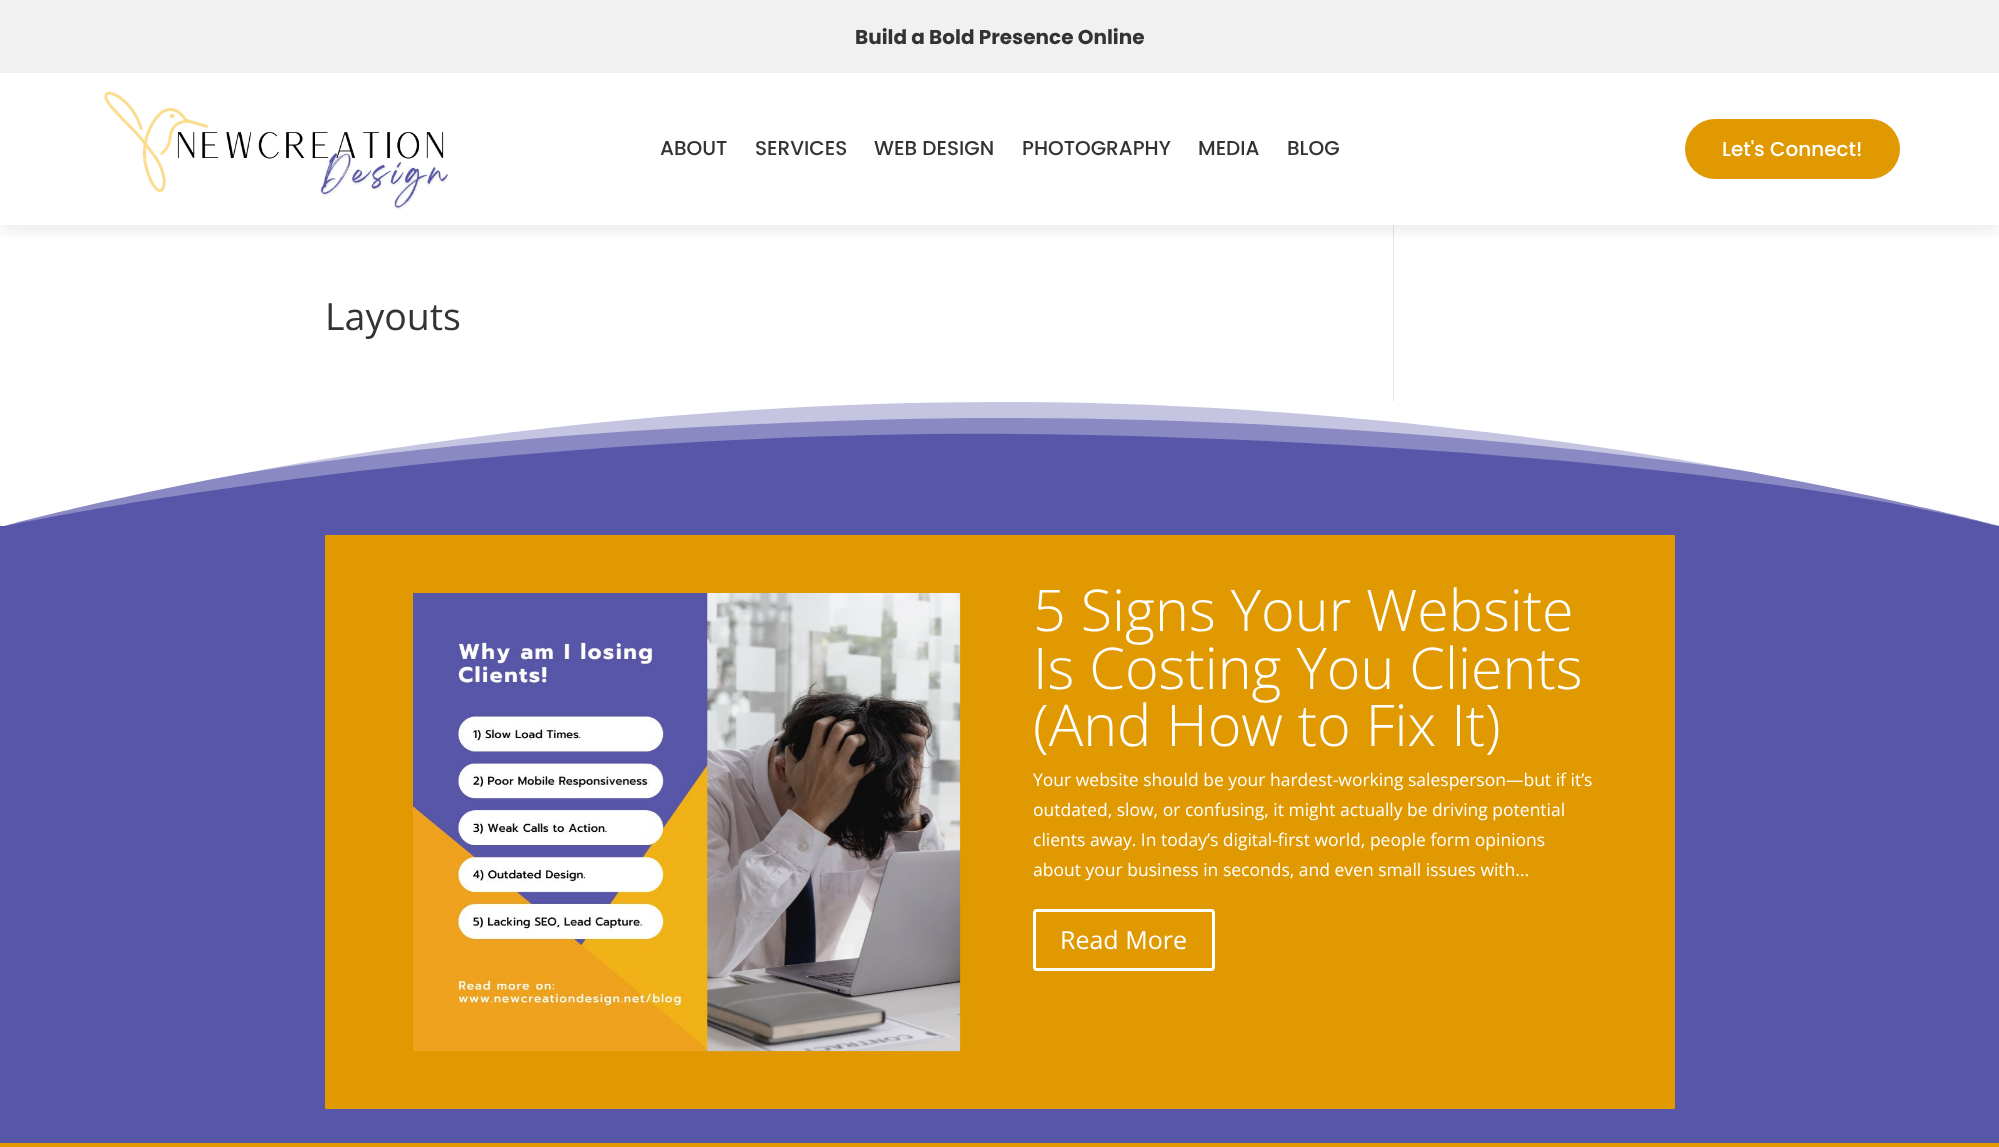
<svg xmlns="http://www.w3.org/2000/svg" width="1999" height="1147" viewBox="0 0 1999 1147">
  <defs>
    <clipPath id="clip1"><rect x="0" y="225" width="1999" height="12"/></clipPath>
    <filter id="blur1" x="-50%" y="-200%" width="200%" height="500%"><feGaussianBlur stdDeviation="11"/></filter>
    <clipPath id="clip2"><rect x="0" y="401" width="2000" height="125"/></clipPath>
  </defs>
  <rect width="100%" height="100%" fill="#ffffff"/>
  <rect x="1393" y="225" width="1" height="176" fill="#e2e2e2"/>
  <g clip-path="url(#clip1)">
    <rect x="0" y="3" width="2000" height="225" fill="#000000" fill-opacity="0.1" filter="url(#blur1)"/>
  </g>
  <rect x="0" y="0" width="1999" height="73" fill="#f1f1f1"/>
  <text x="855" y="44" font-family="Poppins" font-size="20" font-weight="bold" fill="#333333">Build a Bold Presence Online</text>
  <image x="104" y="91" width="344" height="119" href="img1.png"/>
  <text x="660" y="155" font-family="Poppins" font-size="20" font-weight="500" fill="#333333">ABOUT</text>
  <text x="755" y="155" font-family="Poppins" font-size="20" font-weight="500" fill="#333333">SERVICES</text>
  <text x="874" y="155" font-family="Poppins" font-size="20" font-weight="500" fill="#333333">WEB DESIGN</text>
  <text x="1022" y="155" font-family="Poppins" font-size="20" font-weight="500" fill="#333333">PHOTOGRAPHY</text>
  <text x="1198" y="155" font-family="Poppins" font-size="20" font-weight="500" fill="#333333">MEDIA</text>
  <text x="1287" y="155" font-family="Poppins" font-size="20" font-weight="500" fill="#333333">BLOG</text>
  <rect x="1685" y="119" width="215" height="60" rx="30" fill="#e09900"/>
  <text x="1722" y="156" font-family="Poppins" font-size="20" font-weight="500" fill="#ffffff">Let's Connect!</text>
  <text x="325" y="330" font-family="Open Sans" font-size="37.5" fill="#333333">Layouts</text>
  <rect x="0" y="433" width="1999" height="710" fill="#5856a9"/>
  <g clip-path="url(#clip2)">
    <path d="M1133 436C508 417 0 527 0 527V402H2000V527C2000 527 1758 455 1133 436Z" fill="#8a89c3"/>
    <path d="M869 420C1490 402 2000 514 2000 514V402H0V527C0 527 249 438 869 420Z" fill="#c5c4e1"/>
    <path d="M1000 402C1552 402 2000 527 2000 526V401H0V527C0 527 448 402 1000 402Z" fill="#ffffff"/>
  </g>
  <rect x="325" y="535" width="1350" height="574" fill="#e09900"/>
  <image x="413" y="593" width="548" height="459" href="img2.png"/>
  <text x="1033" y="631" font-family="Open Sans" font-size="57.5" font-weight="300" fill="#ffffff">5 Signs Your Website</text>
  <text x="1033" y="689" font-family="Open Sans" font-size="57.5" font-weight="300" fill="#ffffff">Is Costing You Clients</text>
  <text x="1033" y="746" font-family="Open Sans" font-size="57.5" font-weight="300" fill="#ffffff">(And How to Fix It)</text>
  <text x="1033" y="786" font-family="Open Sans" font-size="17.5" fill="#ffffff">Your website should be your hardest-working salesperson—but if it’s</text>
  <text x="1033" y="816" font-family="Open Sans" font-size="17.5" fill="#ffffff">outdated, slow, or confusing, it might actually be driving potential</text>
  <text x="1033" y="846" font-family="Open Sans" font-size="17.5" fill="#ffffff">clients away. In today’s digital-first world, people form opinions</text>
  <text x="1033" y="876" font-family="Open Sans" font-size="17.5" fill="#ffffff">about your business in seconds, and even small issues with...</text>
  <rect x="1034.5" y="910.5" width="179" height="59" rx="2.5" fill="none" stroke="#ffffff" stroke-width="3"/>
  <text x="1060" y="949" font-family="Open Sans" font-size="25" fill="#ffffff">Read More</text>
  <rect x="0" y="1143" width="1999" height="4" fill="#e09900"/>
</svg>
